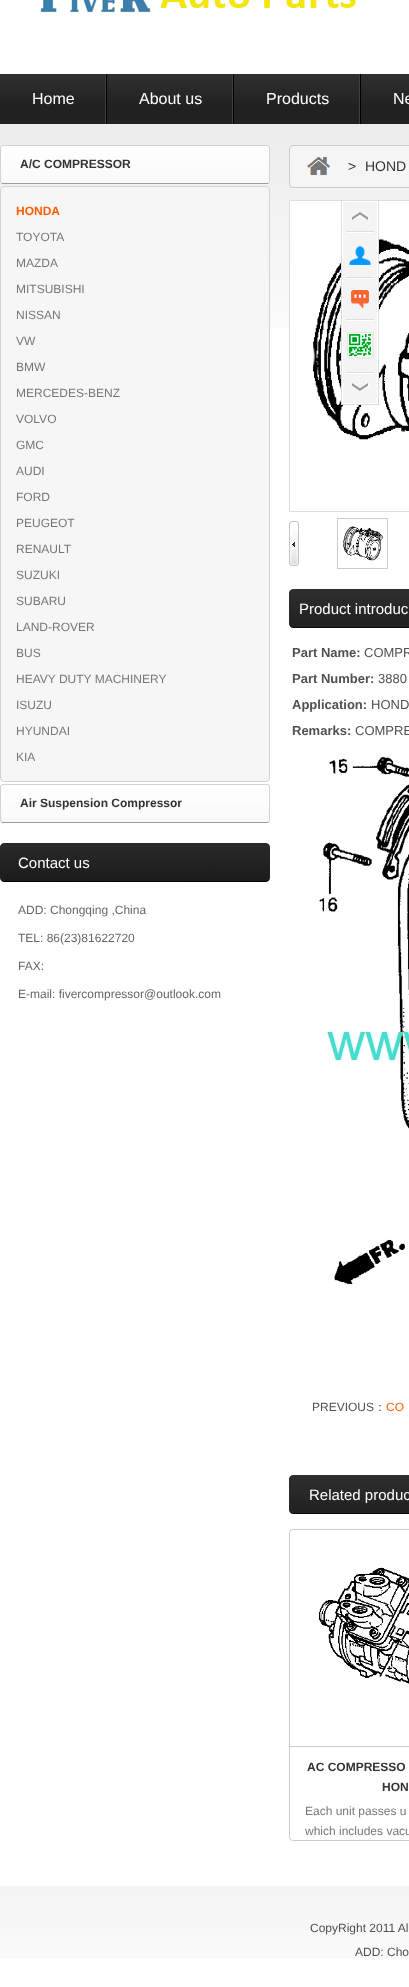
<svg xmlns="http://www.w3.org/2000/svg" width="409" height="1987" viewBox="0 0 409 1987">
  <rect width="100%" height="100%" fill="#ffffff"/>
  <image x="0" y="74" width="409" height="254" href="img1.png"/>
  <image x="40" y="0" width="316" height="14" href="img2.png"/>
  <image x="105" y="74" width="2" height="50" href="img3.png"/>
  <text x="32" y="104" font-family="Liberation Sans" font-size="16" fill="#ffffff">Home</text>
  <image x="232" y="74" width="2" height="50" href="img3.png"/>
  <text x="139" y="104" font-family="Liberation Sans" font-size="16" fill="#ffffff">About us</text>
  <image x="359" y="74" width="2" height="50" href="img3.png"/>
  <text x="266" y="104" font-family="Liberation Sans" font-size="16" fill="#ffffff">Products</text>
  <text x="393" y="104" font-family="Liberation Sans" font-size="16" fill="#ffffff">Ne</text>
  <image x="0" y="145" width="270" height="39" href="img4.png"/>
  <text x="20" y="168" font-family="Liberation Sans" font-size="12" font-weight="bold" fill="#333333">A/C COMPRESSOR</text>
  <rect x="0.5" y="186.5" width="269" height="595" rx="3.5" fill="#f6f6f6" stroke="#d3d3d3"/>
  <text x="16" y="215" font-family="Liberation Sans" font-size="12" font-weight="bold" fill="#fc5f01">HONDA</text>
  <text x="16" y="241" font-family="Liberation Sans" font-size="12" fill="#777777">TOYOTA</text>
  <text x="16" y="267" font-family="Liberation Sans" font-size="12" fill="#777777">MAZDA</text>
  <text x="16" y="293" font-family="Liberation Sans" font-size="12" fill="#777777">MITSUBISHI</text>
  <text x="16" y="319" font-family="Liberation Sans" font-size="12" fill="#777777">NISSAN</text>
  <text x="16" y="345" font-family="Liberation Sans" font-size="12" fill="#777777">VW</text>
  <text x="16" y="371" font-family="Liberation Sans" font-size="12" fill="#777777">BMW</text>
  <text x="16" y="397" font-family="Liberation Sans" font-size="12" fill="#777777">MERCEDES-BENZ</text>
  <text x="16" y="423" font-family="Liberation Sans" font-size="12" fill="#777777">VOLVO</text>
  <text x="16" y="449" font-family="Liberation Sans" font-size="12" fill="#777777">GMC</text>
  <text x="16" y="475" font-family="Liberation Sans" font-size="12" fill="#777777">AUDI</text>
  <text x="16" y="501" font-family="Liberation Sans" font-size="12" fill="#777777">FORD</text>
  <text x="16" y="527" font-family="Liberation Sans" font-size="12" fill="#777777">PEUGEOT</text>
  <text x="16" y="553" font-family="Liberation Sans" font-size="12" fill="#777777">RENAULT</text>
  <text x="16" y="579" font-family="Liberation Sans" font-size="12" fill="#777777">SUZUKI</text>
  <text x="16" y="605" font-family="Liberation Sans" font-size="12" fill="#777777">SUBARU</text>
  <text x="16" y="631" font-family="Liberation Sans" font-size="12" fill="#777777">LAND-ROVER</text>
  <text x="16" y="657" font-family="Liberation Sans" font-size="12" fill="#777777">BUS</text>
  <text x="16" y="683" font-family="Liberation Sans" font-size="12" fill="#777777">HEAVY DUTY MACHINERY</text>
  <text x="16" y="709" font-family="Liberation Sans" font-size="12" fill="#777777">ISUZU</text>
  <text x="16" y="735" font-family="Liberation Sans" font-size="12" fill="#777777">HYUNDAI</text>
  <text x="16" y="761" font-family="Liberation Sans" font-size="12" fill="#777777">KIA</text>
  <image x="0" y="784" width="270" height="39" href="img5.png"/>
  <text x="20" y="807" font-family="Liberation Sans" font-size="12" font-weight="bold" fill="#333333">Air Suspension Compressor</text>
  <image x="0" y="843" width="270" height="39" href="img6.png"/>
  <text x="18" y="868" font-family="Liberation Sans" font-size="15" fill="#ffffff">Contact us</text>
  <text x="18" y="914" font-family="Liberation Sans" font-size="12" fill="#666666">ADD: Chongqing ,China</text>
  <text x="18" y="942" font-family="Liberation Sans" font-size="12" fill="#666666">TEL: 86(23)81622720</text>
  <text x="18" y="970" font-family="Liberation Sans" font-size="12" fill="#666666">FAX:</text>
  <text x="18" y="998" font-family="Liberation Sans" font-size="12" fill="#666666">E-mail: fivercompressor@outlook.com</text>
  <image x="289" y="145" width="120" height="43" href="img7.png"/>
  <image x="307" y="157" width="23" height="18" href="img8.png"/>
  <text x="348" y="171" font-family="Liberation Sans" font-size="14" fill="#333333">&gt;</text>
  <text x="365" y="171" font-family="Liberation Sans" font-size="14" fill="#333333">HOND</text>
  <rect x="289.5" y="200.5" width="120" height="311" fill="none" stroke="#dddddd"/>
  <image x="290" y="201" width="119" height="239" href="img9.png"/>
  <image x="289" y="521" width="10" height="45" href="img10.png"/>
  <rect x="337.5" y="518.5" width="50" height="50" fill="none" stroke="#cccccc"/>
  <image x="343" y="526" width="40" height="35" href="img11.png"/>
  <image x="289" y="589" width="120" height="39" href="img12.png"/>
  <text x="299" y="614" font-family="Liberation Sans" font-size="15" fill="#ffffff">Product introduc</text>
  <text x="292" y="657" font-family="Liberation Sans" font-size="13" font-weight="bold" fill="#505050">Part Name:</text>
  <text x="364" y="657" font-family="Liberation Sans" font-size="13" fill="#505050">COMPR</text>
  <text x="292" y="683" font-family="Liberation Sans" font-size="13" font-weight="bold" fill="#505050">Part Number:</text>
  <text x="378" y="683" font-family="Liberation Sans" font-size="13" fill="#505050">3880</text>
  <text x="292" y="709" font-family="Liberation Sans" font-size="13" font-weight="bold" fill="#505050">Application:</text>
  <text x="371" y="709" font-family="Liberation Sans" font-size="13" fill="#505050">HOND</text>
  <text x="292" y="735" font-family="Liberation Sans" font-size="13" font-weight="bold" fill="#505050">Remarks:</text>
  <text x="355" y="735" font-family="Liberation Sans" font-size="13" fill="#505050">COMPRE</text>
  <image x="319" y="757" width="90" height="527" href="img13.png"/>
  <text x="312" y="1411" font-family="Liberation Sans" font-size="12" fill="#505050">PREVIOUS</text>
  <text x="374" y="1411" font-family="WenQuanYi Zen Hei" font-size="12" font-weight="500" fill="#505050">：</text>
  <text x="386" y="1411" font-family="Liberation Sans" font-size="12" fill="#fc5f01">CO</text>
  <image x="289" y="1475" width="120" height="39" href="img12.png"/>
  <text x="309" y="1500" font-family="Liberation Sans" font-size="15" fill="#ffffff">Related produc</text>
  <rect x="289.5" y="1529.5" width="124" height="311" rx="3.5" fill="none" stroke="#cccccc"/>
  <image x="319" y="1567" width="90" height="117" href="img14.png"/>
  <rect x="290" y="1746" width="119" height="1" fill="#cccccc"/>
  <text x="307" y="1771" font-family="Liberation Sans" font-size="12" font-weight="bold" fill="#333333">AC COMPRESSO</text>
  <text x="382" y="1791" font-family="Liberation Sans" font-size="12" font-weight="bold" fill="#333333">HON</text>
  <text x="305" y="1815" font-family="Liberation Sans" font-size="12" fill="#777777">Each unit passes u</text>
  <text x="305" y="1835" font-family="Liberation Sans" font-size="12" fill="#777777">which includes vacu</text>
  <rect x="342" y="239" width="36" height="165" fill="#ffffff"/>
  <image x="342" y="202" width="35" height="201" href="img15.png"/>
  <rect x="341.5" y="200.5" width="37" height="204" fill="none" stroke="#dddddd"/>
  <image x="0" y="1886" width="409" height="73" href="img16.png"/>
  <text x="310" y="1932" font-family="Liberation Sans" font-size="12" fill="#505050">CopyRight 2011 Al</text>
  <text x="355" y="1956" font-family="Liberation Sans" font-size="12" fill="#505050">ADD: Cho</text>
</svg>
